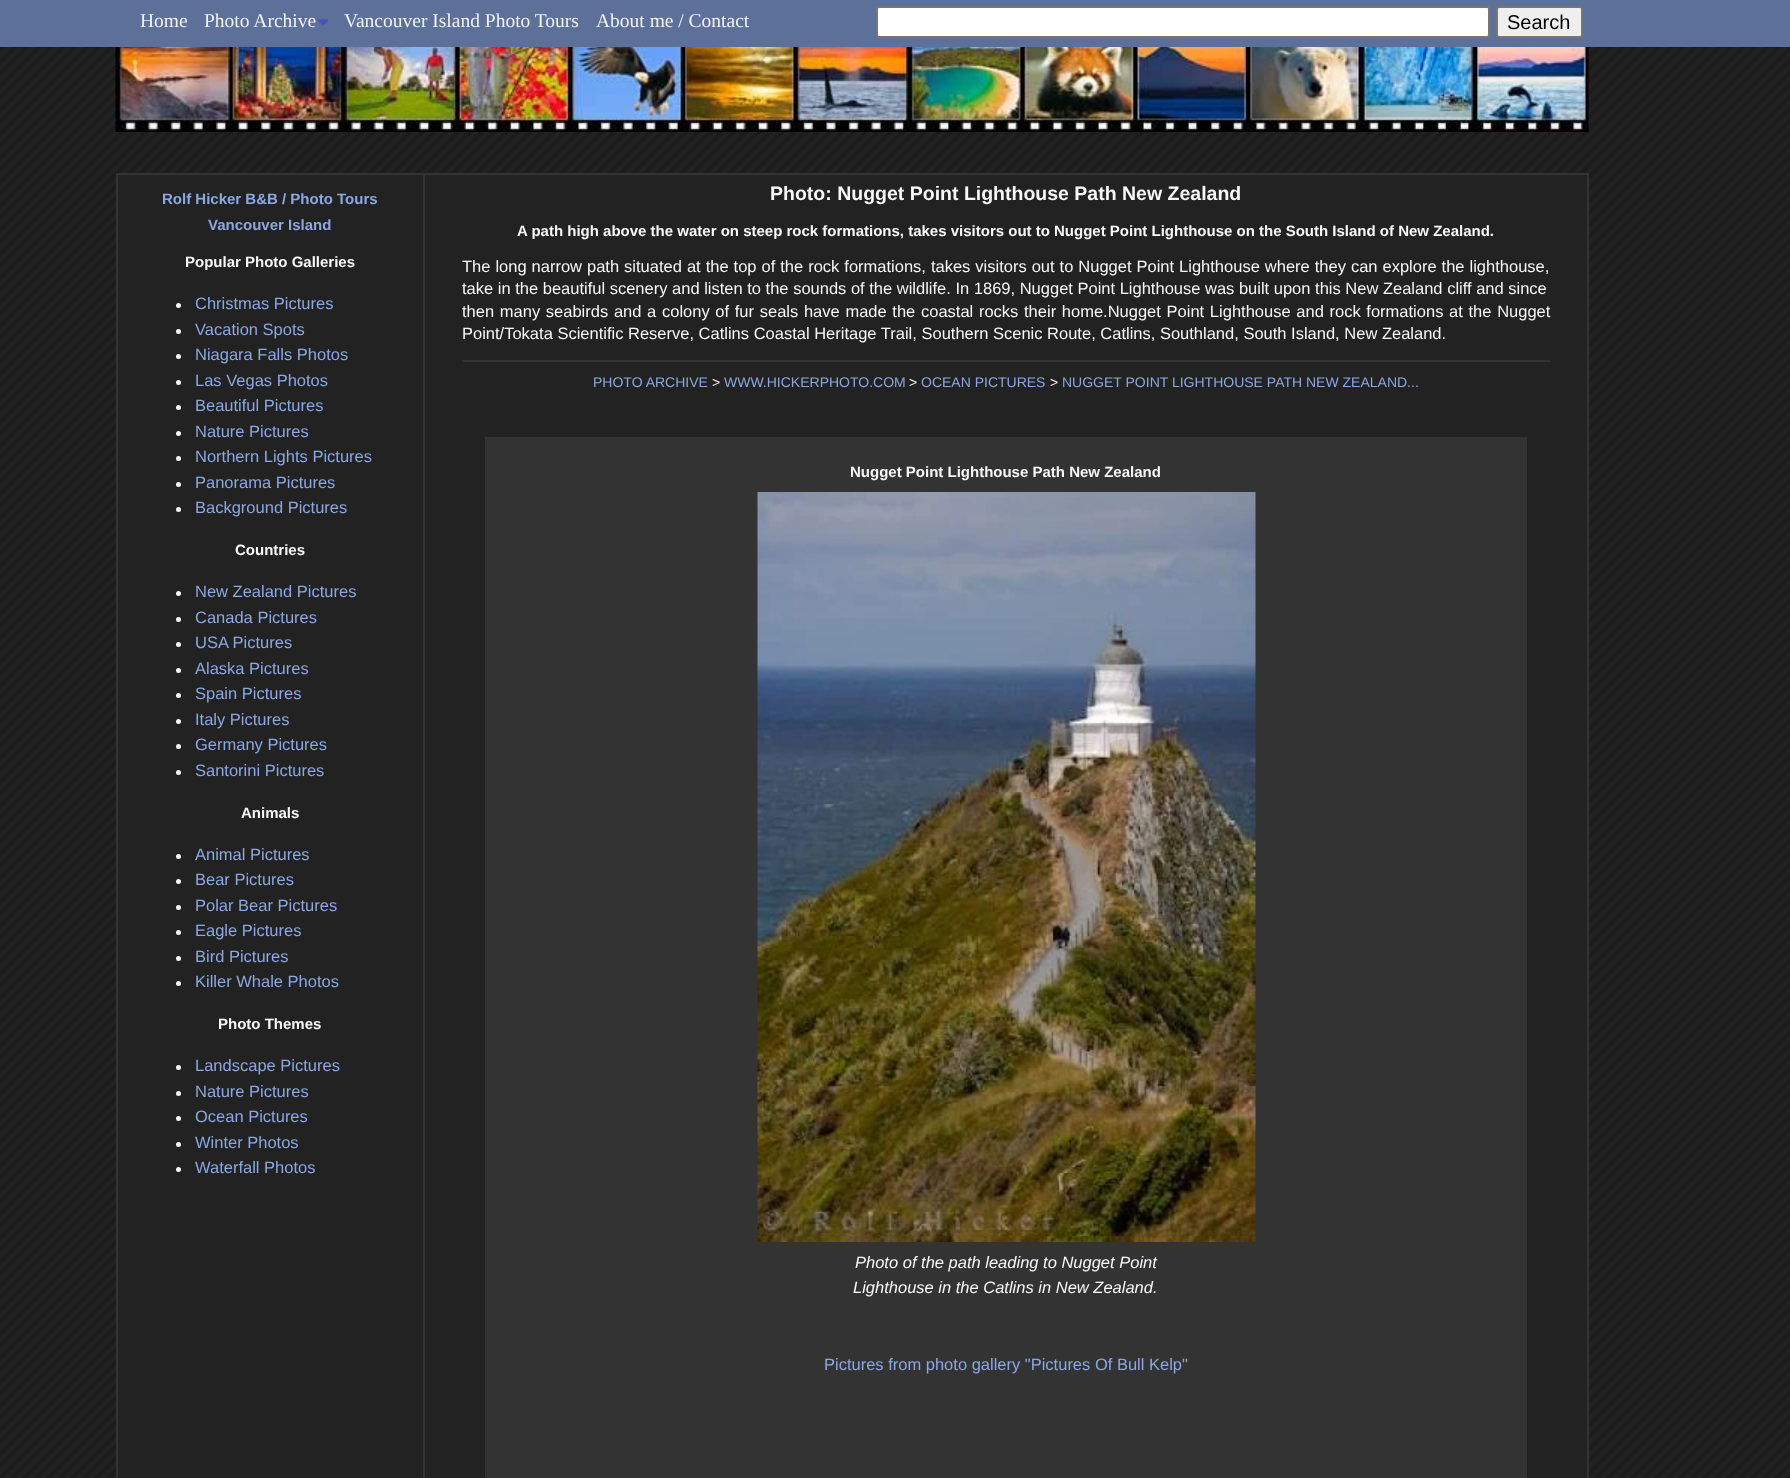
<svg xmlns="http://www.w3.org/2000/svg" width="1790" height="1478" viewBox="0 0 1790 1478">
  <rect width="100%" height="100%" fill="#ffffff"/>
  <image x="0" y="47" width="1790" height="1431" href="img1.png"/>
  <rect x="0" y="0" width="1790" height="47" fill="#5d7099"/>
  <text x="140" y="27" font-family="Liberation Serif" font-size="19.5" fill="#f2f2f2">Home</text>
  <image x="318" y="19" width="11" height="7" href="img2.png"/>
  <text x="204" y="27" font-family="Liberation Serif" font-size="19.5" fill="#f2f2f2">Photo Archive</text>
  <text x="344" y="27" font-family="Liberation Serif" font-size="19.5" fill="#f2f2f2">Vancouver Island Photo Tours</text>
  <text x="596" y="27" font-family="Liberation Serif" font-size="19.5" fill="#f2f2f2">About me / Contact</text>
  <rect x="877" y="7" width="612" height="30" rx="2" fill="#ffffff" stroke="#767676" stroke-width="2"/>
  <rect x="1497" y="7" width="85" height="30" rx="2" fill="#efefef" stroke="#767676" stroke-width="2"/>
  <text x="1507" y="29" font-family="Liberation Sans" font-size="20" fill="#000000">Search</text>
  <image x="115" y="47" width="1474" height="85" href="img3.png"/>
  <rect x="117" y="174" width="1471" height="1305" fill="#222222" stroke="#333333" stroke-width="2"/>
  <text x="162" y="204" font-family="Liberation Sans" font-size="15" font-weight="bold" fill="#8ba8e5">Rolf Hicker B&amp;B / Photo Tours</text>
  <text x="208" y="230" font-family="Liberation Sans" font-size="15" font-weight="bold" fill="#8ba8e5">Vancouver Island</text>
  <text x="185" y="267" font-family="Liberation Sans" font-size="15" font-weight="bold" fill="#f8f8f8">Popular Photo Galleries</text>
  <circle cx="178.5" cy="305.5" r="2.5" fill="#f8f8f8"/>
  <text x="195" y="309" font-family="Liberation Sans" font-size="16.5" fill="#8ba8e5">Christmas Pictures</text>
  <circle cx="178.5" cy="331.5" r="2.5" fill="#f8f8f8"/>
  <text x="195" y="335" font-family="Liberation Sans" font-size="16.5" fill="#8ba8e5">Vacation Spots</text>
  <circle cx="178.5" cy="356.5" r="2.5" fill="#f8f8f8"/>
  <text x="195" y="360" font-family="Liberation Sans" font-size="16.5" fill="#8ba8e5">Niagara Falls Photos</text>
  <circle cx="178.5" cy="382.5" r="2.5" fill="#f8f8f8"/>
  <text x="195" y="386" font-family="Liberation Sans" font-size="16.5" fill="#8ba8e5">Las Vegas Photos</text>
  <circle cx="178.5" cy="407.5" r="2.5" fill="#f8f8f8"/>
  <text x="195" y="411" font-family="Liberation Sans" font-size="16.5" fill="#8ba8e5">Beautiful Pictures</text>
  <circle cx="178.5" cy="433.5" r="2.5" fill="#f8f8f8"/>
  <text x="195" y="437" font-family="Liberation Sans" font-size="16.5" fill="#8ba8e5">Nature Pictures</text>
  <circle cx="178.5" cy="458.5" r="2.5" fill="#f8f8f8"/>
  <text x="195" y="462" font-family="Liberation Sans" font-size="16.5" fill="#8ba8e5">Northern Lights Pictures</text>
  <circle cx="178.5" cy="484.5" r="2.5" fill="#f8f8f8"/>
  <text x="195" y="488" font-family="Liberation Sans" font-size="16.5" fill="#8ba8e5">Panorama Pictures</text>
  <circle cx="178.5" cy="509.5" r="2.5" fill="#f8f8f8"/>
  <text x="195" y="513" font-family="Liberation Sans" font-size="16.5" fill="#8ba8e5">Background Pictures</text>
  <text x="235" y="555" font-family="Liberation Sans" font-size="15" font-weight="bold" fill="#f8f8f8">Countries</text>
  <circle cx="178.5" cy="593.5" r="2.5" fill="#f8f8f8"/>
  <text x="195" y="597" font-family="Liberation Sans" font-size="16.5" fill="#8ba8e5">New Zealand Pictures</text>
  <circle cx="178.5" cy="619.5" r="2.5" fill="#f8f8f8"/>
  <text x="195" y="623" font-family="Liberation Sans" font-size="16.5" fill="#8ba8e5">Canada Pictures</text>
  <circle cx="178.5" cy="644.5" r="2.5" fill="#f8f8f8"/>
  <text x="195" y="648" font-family="Liberation Sans" font-size="16.5" fill="#8ba8e5">USA Pictures</text>
  <circle cx="178.5" cy="670.5" r="2.5" fill="#f8f8f8"/>
  <text x="195" y="674" font-family="Liberation Sans" font-size="16.5" fill="#8ba8e5">Alaska Pictures</text>
  <circle cx="178.5" cy="695.5" r="2.5" fill="#f8f8f8"/>
  <text x="195" y="699" font-family="Liberation Sans" font-size="16.5" fill="#8ba8e5">Spain Pictures</text>
  <circle cx="178.5" cy="721.5" r="2.5" fill="#f8f8f8"/>
  <text x="195" y="725" font-family="Liberation Sans" font-size="16.5" fill="#8ba8e5">Italy Pictures</text>
  <circle cx="178.5" cy="746.5" r="2.5" fill="#f8f8f8"/>
  <text x="195" y="750" font-family="Liberation Sans" font-size="16.5" fill="#8ba8e5">Germany Pictures</text>
  <circle cx="178.5" cy="772.5" r="2.5" fill="#f8f8f8"/>
  <text x="195" y="776" font-family="Liberation Sans" font-size="16.5" fill="#8ba8e5">Santorini Pictures</text>
  <text x="241" y="818" font-family="Liberation Sans" font-size="15" font-weight="bold" fill="#f8f8f8">Animals</text>
  <circle cx="178.5" cy="856.5" r="2.5" fill="#f8f8f8"/>
  <text x="195" y="860" font-family="Liberation Sans" font-size="16.5" fill="#8ba8e5">Animal Pictures</text>
  <circle cx="178.5" cy="881.5" r="2.5" fill="#f8f8f8"/>
  <text x="195" y="885" font-family="Liberation Sans" font-size="16.5" fill="#8ba8e5">Bear Pictures</text>
  <circle cx="178.5" cy="907.5" r="2.5" fill="#f8f8f8"/>
  <text x="195" y="911" font-family="Liberation Sans" font-size="16.5" fill="#8ba8e5">Polar Bear Pictures</text>
  <circle cx="178.5" cy="932.5" r="2.5" fill="#f8f8f8"/>
  <text x="195" y="936" font-family="Liberation Sans" font-size="16.5" fill="#8ba8e5">Eagle Pictures</text>
  <circle cx="178.5" cy="958.5" r="2.5" fill="#f8f8f8"/>
  <text x="195" y="962" font-family="Liberation Sans" font-size="16.5" fill="#8ba8e5">Bird Pictures</text>
  <circle cx="178.5" cy="983.5" r="2.5" fill="#f8f8f8"/>
  <text x="195" y="987" font-family="Liberation Sans" font-size="16.5" fill="#8ba8e5">Killer Whale Photos</text>
  <text x="218" y="1029" font-family="Liberation Sans" font-size="15" font-weight="bold" fill="#f8f8f8">Photo Themes</text>
  <circle cx="178.5" cy="1067.5" r="2.5" fill="#f8f8f8"/>
  <text x="195" y="1071" font-family="Liberation Sans" font-size="16.5" fill="#8ba8e5">Landscape Pictures</text>
  <circle cx="178.5" cy="1093.5" r="2.5" fill="#f8f8f8"/>
  <text x="195" y="1097" font-family="Liberation Sans" font-size="16.5" fill="#8ba8e5">Nature Pictures</text>
  <circle cx="178.5" cy="1118.5" r="2.5" fill="#f8f8f8"/>
  <text x="195" y="1122" font-family="Liberation Sans" font-size="16.5" fill="#8ba8e5">Ocean Pictures</text>
  <circle cx="178.5" cy="1144.5" r="2.5" fill="#f8f8f8"/>
  <text x="195" y="1148" font-family="Liberation Sans" font-size="16.5" fill="#8ba8e5">Winter Photos</text>
  <circle cx="178.5" cy="1169.5" r="2.5" fill="#f8f8f8"/>
  <text x="195" y="1173" font-family="Liberation Sans" font-size="16.5" fill="#8ba8e5">Waterfall Photos</text>
  <rect x="423" y="174" width="2" height="1304" fill="#333333"/>
  <text x="770" y="200" font-family="Liberation Sans" font-size="19.5" font-weight="bold" fill="#f8f8f8">Photo: Nugget Point Lighthouse Path New Zealand</text>
  <text x="517" y="236" font-family="Liberation Sans" font-size="15" font-weight="bold" fill="#f8f8f8">A path high above the water on steep rock formations, takes visitors out to Nugget Point Lighthouse on the South Island of New Zealand.</text>
  <text x="462" y="272" word-spacing="0.4" font-family="Liberation Sans" font-size="16.5" fill="#f8f8f8">The long narrow path situated at the top of the rock formations, takes visitors out to Nugget Point Lighthouse where they can explore the lighthouse,</text>
  <text x="462" y="294" font-family="Liberation Sans" font-size="16.5" fill="#f8f8f8">take in the beautiful scenery and listen to the sounds of the wildlife. In 1869, Nugget Point Lighthouse was built upon this New Zealand cliff and since</text>
  <text x="462" y="317" word-spacing="1.1" font-family="Liberation Sans" font-size="16.5" fill="#f8f8f8">then many seabirds and a colony of fur seals have made the coastal rocks their home.Nugget Point Lighthouse and rock formations at the Nugget</text>
  <text x="462" y="339" font-family="Liberation Sans" font-size="16.5" fill="#f8f8f8">Point/Tokata Scientific Reserve, Catlins Coastal Heritage Trail, Southern Scenic Route, Catlins, Southland, South Island, New Zealand.</text>
  <rect x="462" y="360" width="1088" height="2" fill="#333333"/>
  <text x="593" y="387" font-family="Liberation Sans" font-size="14" fill="#8ba8e5">PHOTO ARCHIVE</text>
  <text x="712" y="387" font-family="Liberation Sans" font-size="14" fill="#f8f8f8">&gt;</text>
  <text x="724" y="387" font-family="Liberation Sans" font-size="14" fill="#8ba8e5">WWW.HICKERPHOTO.COM</text>
  <text x="909" y="387" font-family="Liberation Sans" font-size="14" fill="#f8f8f8">&gt;</text>
  <text x="921" y="387" font-family="Liberation Sans" font-size="14" fill="#8ba8e5">OCEAN PICTURES</text>
  <text x="1050" y="387" font-family="Liberation Sans" font-size="14" fill="#f8f8f8">&gt;</text>
  <text x="1062" y="387" font-family="Liberation Sans" font-size="14" fill="#8ba8e5">NUGGET POINT LIGHTHOUSE PATH NEW ZEALAND...</text>
  <rect x="485" y="437" width="1042" height="1041" fill="#333333"/>
  <text x="850" y="477" font-family="Liberation Sans" font-size="15" font-weight="bold" fill="#f8f8f8">Nugget Point Lighthouse Path New Zealand</text>
  <image x="757" y="492" width="499" height="750" href="img4.png"/>
  <text x="855" y="1268" font-family="Liberation Sans" font-size="16.5" font-style="italic" fill="#f8f8f8">Photo of the path leading to Nugget Point</text>
  <text x="853" y="1293" font-family="Liberation Sans" font-size="16.5" font-style="italic" fill="#f8f8f8">Lighthouse in the Catlins in New Zealand.</text>
  <text x="824" y="1370" font-family="Liberation Sans" font-size="16.5" fill="#8ba8e5">Pictures from photo gallery "Pictures Of Bull Kelp"</text>
</svg>
